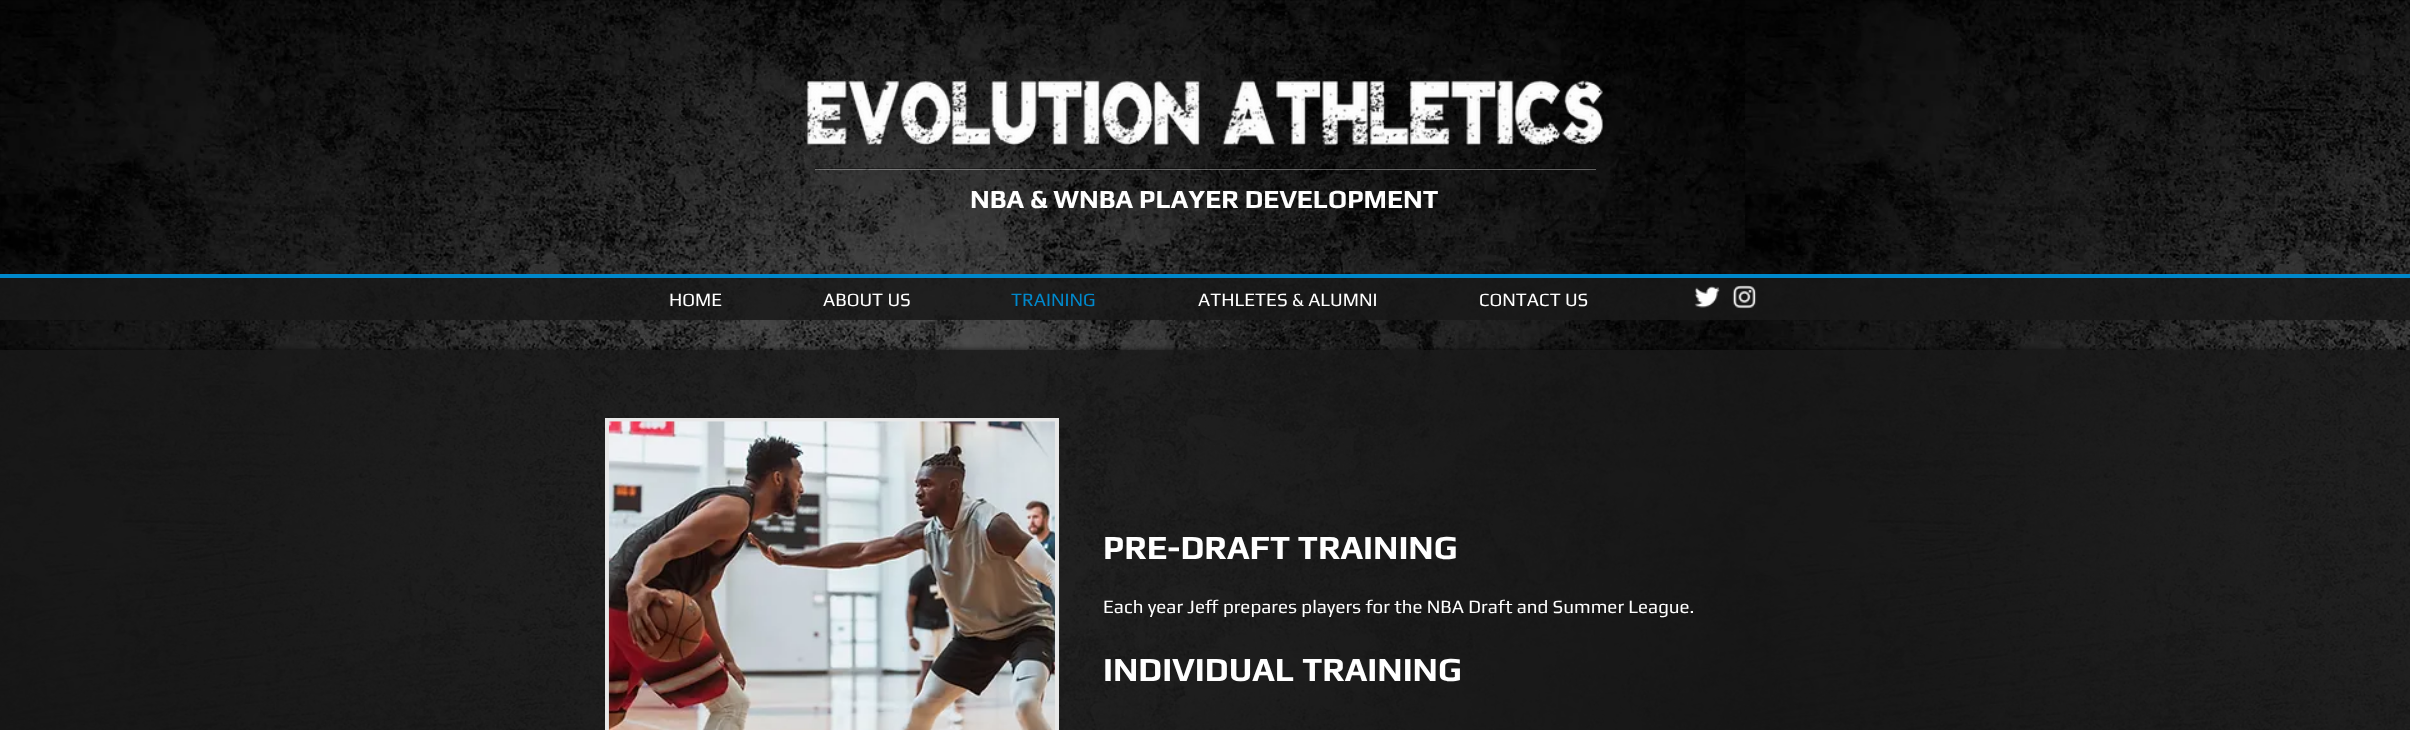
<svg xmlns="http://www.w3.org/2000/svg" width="2410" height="730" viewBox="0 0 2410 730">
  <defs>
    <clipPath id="clip1"><rect x="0" y="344" width="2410" height="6"/></clipPath>
    <filter id="blur1" x="-50%" y="-200%" width="200%" height="500%"><feGaussianBlur stdDeviation="3"/></filter>
  </defs>
  <rect width="100%" height="100%" fill="#ffffff"/>
  <image x="0" y="0" width="2410" height="730" href="img1.png"/>
  <image x="806" y="80" width="797" height="67" href="img2.png"/>
  <rect x="815" y="168" width="781" height="1" fill="#000000" fill-opacity="0.35"/>
  <rect x="815" y="169" width="781" height="1" fill="#ffffff" fill-opacity="0.35"/>
  <text x="970" y="208" font-family="Play" font-size="26.25" font-weight="bold" fill="#ffffff">NBA &amp; WNBA PLAYER DEVELOPMENT</text>
  <rect x="0" y="278" width="2410" height="42" fill="#191919" fill-opacity="0.85"/>
  <rect x="0" y="274" width="2410" height="4" fill="#0088cb"/>
  <text x="669" y="306" font-family="Play" font-size="18.75" fill="#ffffff">HOME</text>
  <text x="823" y="306" font-family="Play" font-size="18.75" fill="#ffffff">ABOUT US</text>
  <text x="1011" y="306" font-family="Play" font-size="18.75" fill="#0088cb">TRAINING</text>
  <text x="1198" y="306" font-family="Play" font-size="18.75" fill="#ffffff">ATHLETES &amp; ALUMNI</text>
  <text x="1479" y="306" font-family="Play" font-size="18.75" fill="#ffffff">CONTACT US</text>
  <image x="1694" y="286" width="26" height="22" href="img3.png"/>
  <image x="1732" y="285" width="25" height="24" href="img4.png"/>
  <g clip-path="url(#clip1)">
    <rect x="0" y="350" width="2410" height="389" fill="#000000" fill-opacity="0.7" filter="url(#blur1)"/>
  </g>
  <rect x="0" y="350" width="2410" height="380" fill="#191919" fill-opacity="0.85"/>
  <rect x="605" y="418" width="454" height="312" fill="#e8e8e8"/>
  <image x="608" y="421" width="447" height="309" href="img5.png"/>
  <text x="1103" y="559" font-family="Play" font-size="33.75" font-weight="bold" fill="#ffffff">PRE-DRAFT TRAINING</text>
  <text x="1103" y="613" font-family="Play" font-size="18.75" fill="#ffffff">Each year Jeff prepares players for the NBA Draft and Summer League.</text>
  <text x="1103" y="681" font-family="Play" font-size="33.75" font-weight="bold" fill="#ffffff">INDIVIDUAL TRAINING</text>
</svg>
